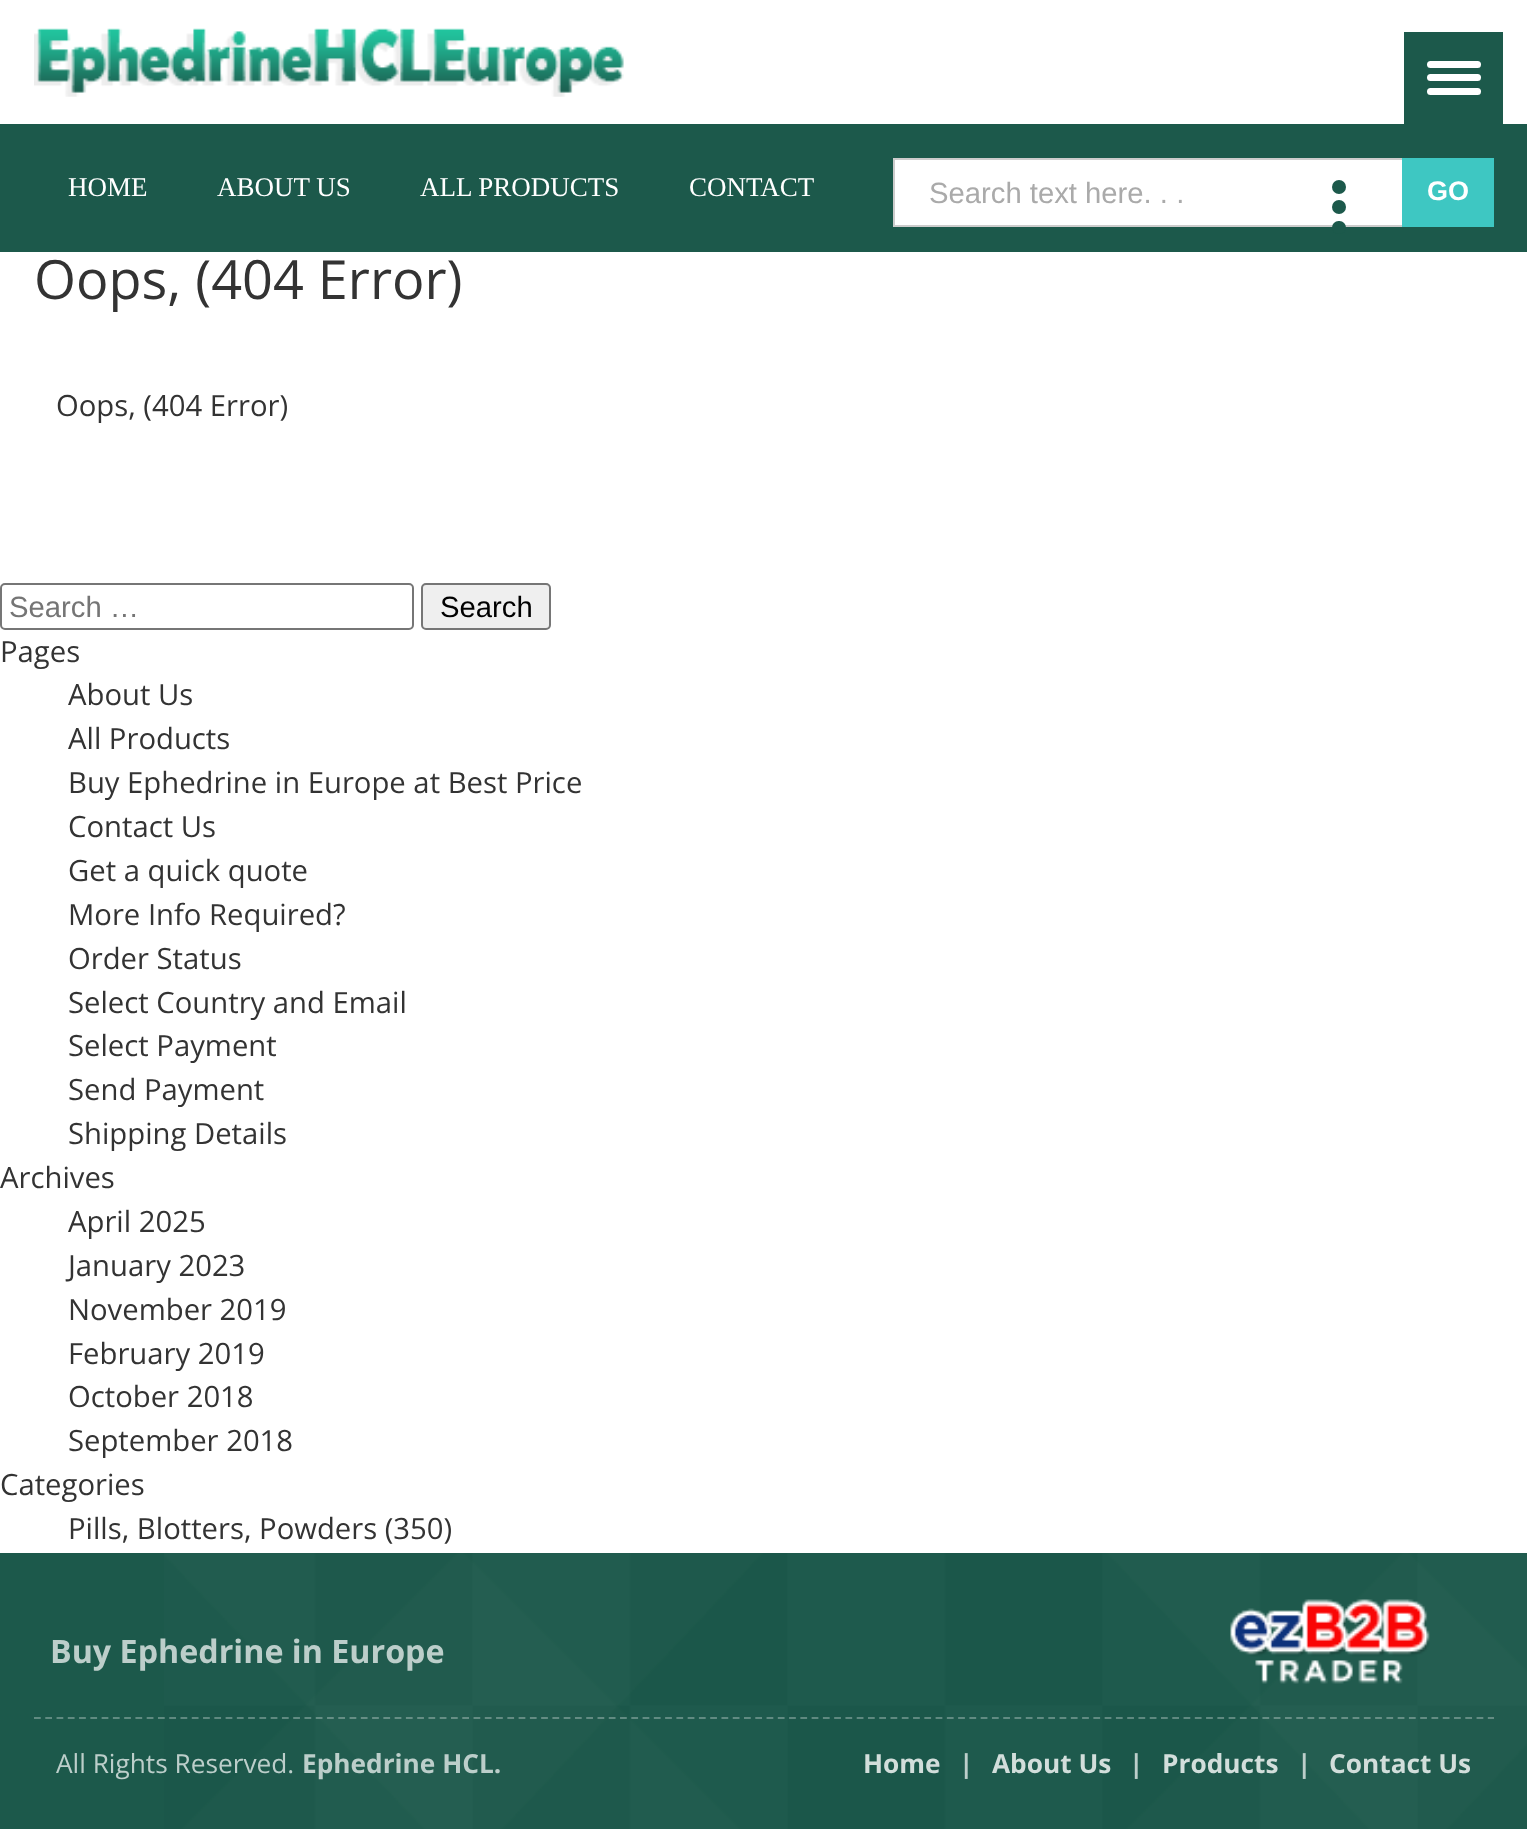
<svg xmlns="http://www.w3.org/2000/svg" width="1527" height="1829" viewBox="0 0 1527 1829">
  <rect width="100%" height="100%" fill="#ffffff"/>
  <image x="34" y="28" width="590" height="69" href="img1.png"/>
  <rect x="0" y="124" width="1527" height="128" fill="#1c594b"/>
  <rect x="895" y="160" width="507" height="65" fill="#ffffff"/>
  <rect x="894" y="159" width="516" height="67" fill="none" stroke="#cccccc" stroke-width="2"/>
  <circle cx="1339" cy="207" r="7" fill="#1c594b"/>
  <circle cx="1339" cy="187" r="7" fill="#1c594b"/>
  <rect x="1332" y="221" width="14" height="13" rx="6.5" fill="#1c594b"/>
  <rect x="1404" y="32" width="99" height="92" fill="#1c594b"/>
  <rect x="1427" y="61" width="54" height="7" rx="3.5" fill="#ffffff"/>
  <rect x="1427" y="74" width="54" height="7" rx="3.5" fill="#ffffff"/>
  <rect x="1427" y="88" width="54" height="7" rx="3.5" fill="#ffffff"/>
  <text x="68" y="196" font-family="Liberation Serif" font-size="27" fill="#ffffff">HOME</text>
  <text x="217" y="196" font-family="Liberation Serif" font-size="27" fill="#ffffff">ABOUT US</text>
  <text x="420" y="196" font-family="Liberation Serif" font-size="27" fill="#ffffff">ALL PRODUCTS</text>
  <text x="689" y="196" font-family="Liberation Serif" font-size="27" fill="#ffffff">CONTACT</text>
  <text x="929" y="203" font-family="Liberation Sans" font-size="29.25" fill="#aaaaaa">Search text here. . .</text>
  <rect x="1402" y="158" width="92" height="69" fill="#3ec7c2"/>
  <text x="1427" y="200" font-family="Liberation Sans" font-size="27" font-weight="bold" fill="#ffffff">GO</text>
  <text x="34" y="299" font-family="Open Sans" font-size="54" fill="#333333">Oops, (404 Error)</text>
  <text x="56" y="416" font-family="Open Sans" font-size="29.25" fill="#333333">Oops, (404 Error)</text>
  <rect x="1" y="584" width="412" height="45" rx="4" fill="none" stroke="#767676" stroke-width="2"/>
  <text x="9" y="617" font-family="Liberation Sans" font-size="29.25" fill="#757575">Search …</text>
  <rect x="422" y="584" width="128" height="45" rx="4" fill="#efefef" stroke="#767676" stroke-width="2"/>
  <text x="440" y="617" font-family="Liberation Sans" font-size="29.25" fill="#000000">Search</text>
  <text x="0" y="662" font-family="Open Sans" font-size="29.25" fill="#333333">Pages</text>
  <text x="68" y="705" font-family="Open Sans" font-size="29.25" fill="#333333">About Us</text>
  <text x="68" y="749" font-family="Open Sans" font-size="29.25" fill="#333333">All Products</text>
  <text x="68" y="793" font-family="Open Sans" font-size="29.25" fill="#333333">Buy Ephedrine in Europe at Best Price</text>
  <text x="68" y="837" font-family="Open Sans" font-size="29.25" fill="#333333">Contact Us</text>
  <text x="68" y="881" font-family="Open Sans" font-size="29.25" fill="#333333">Get a quick quote</text>
  <text x="68" y="925" font-family="Open Sans" font-size="29.25" fill="#333333">More Info Required?</text>
  <text x="68" y="969" font-family="Open Sans" font-size="29.25" fill="#333333">Order Status</text>
  <text x="68" y="1013" font-family="Open Sans" font-size="29.25" fill="#333333">Select Country and Email</text>
  <text x="68" y="1056" font-family="Open Sans" font-size="29.25" fill="#333333">Select Payment</text>
  <text x="68" y="1100" font-family="Open Sans" font-size="29.25" fill="#333333">Send Payment</text>
  <text x="68" y="1144" font-family="Open Sans" font-size="29.25" fill="#333333">Shipping Details</text>
  <text x="0" y="1188" font-family="Open Sans" font-size="29.25" fill="#333333">Archives</text>
  <text x="68" y="1232" font-family="Open Sans" font-size="29.25" fill="#333333">April 2025</text>
  <text x="68" y="1276" font-family="Open Sans" font-size="29.25" fill="#333333">January 2023</text>
  <text x="68" y="1320" font-family="Open Sans" font-size="29.25" fill="#333333">November 2019</text>
  <text x="68" y="1364" font-family="Open Sans" font-size="29.25" fill="#333333">February 2019</text>
  <text x="68" y="1407" font-family="Open Sans" font-size="29.25" fill="#333333">October 2018</text>
  <text x="68" y="1451" font-family="Open Sans" font-size="29.25" fill="#333333">September 2018</text>
  <text x="0" y="1495" font-family="Open Sans" font-size="29.25" fill="#333333">Categories</text>
  <text x="68" y="1539" font-family="Open Sans" font-size="29.25" fill="#333333">Pills, Blotters, Powders (350)</text>
  <rect x="0" y="1553" width="1527" height="276" fill="#1c594b"/>
  <image x="164" y="1553" width="1363" height="276" href="img2.png"/>
  <text x="50" y="1663" font-family="Open Sans" font-size="32.25" font-weight="bold" fill="#bcceca">Buy Ephedrine in Europe</text>
  <image x="1230" y="1599" width="200" height="85" href="img3.png"/>
  <path d="M34 1718H1494" fill="none" stroke="#ffffff" stroke-opacity="0.3" stroke-width="2.2" stroke-dasharray="6.75 4.52"/>
  <text x="56" y="1773" font-family="Open Sans" font-size="26.25" fill="#bcceca">All Rights Reserved.</text>
  <text x="302" y="1773" font-family="Open Sans" font-size="26.25" font-weight="bold" fill="#bcceca">Ephedrine HCL.</text>
  <text x="863" y="1773" font-family="Open Sans" font-size="26.25" font-weight="bold" fill="#d2dedb">Home</text>
  <text x="959" y="1773" font-family="Open Sans" font-size="26.25" font-weight="bold" fill="#bcceca">|</text>
  <text x="992" y="1773" font-family="Open Sans" font-size="26.25" font-weight="bold" fill="#d2dedb">About Us</text>
  <text x="1129" y="1773" font-family="Open Sans" font-size="26.25" font-weight="bold" fill="#bcceca">|</text>
  <text x="1162" y="1773" font-family="Open Sans" font-size="26.25" font-weight="bold" fill="#d2dedb">Products</text>
  <text x="1297" y="1773" font-family="Open Sans" font-size="26.25" font-weight="bold" fill="#bcceca">|</text>
  <text x="1329" y="1773" font-family="Open Sans" font-size="26.25" font-weight="bold" fill="#d2dedb">Contact Us</text>
</svg>
